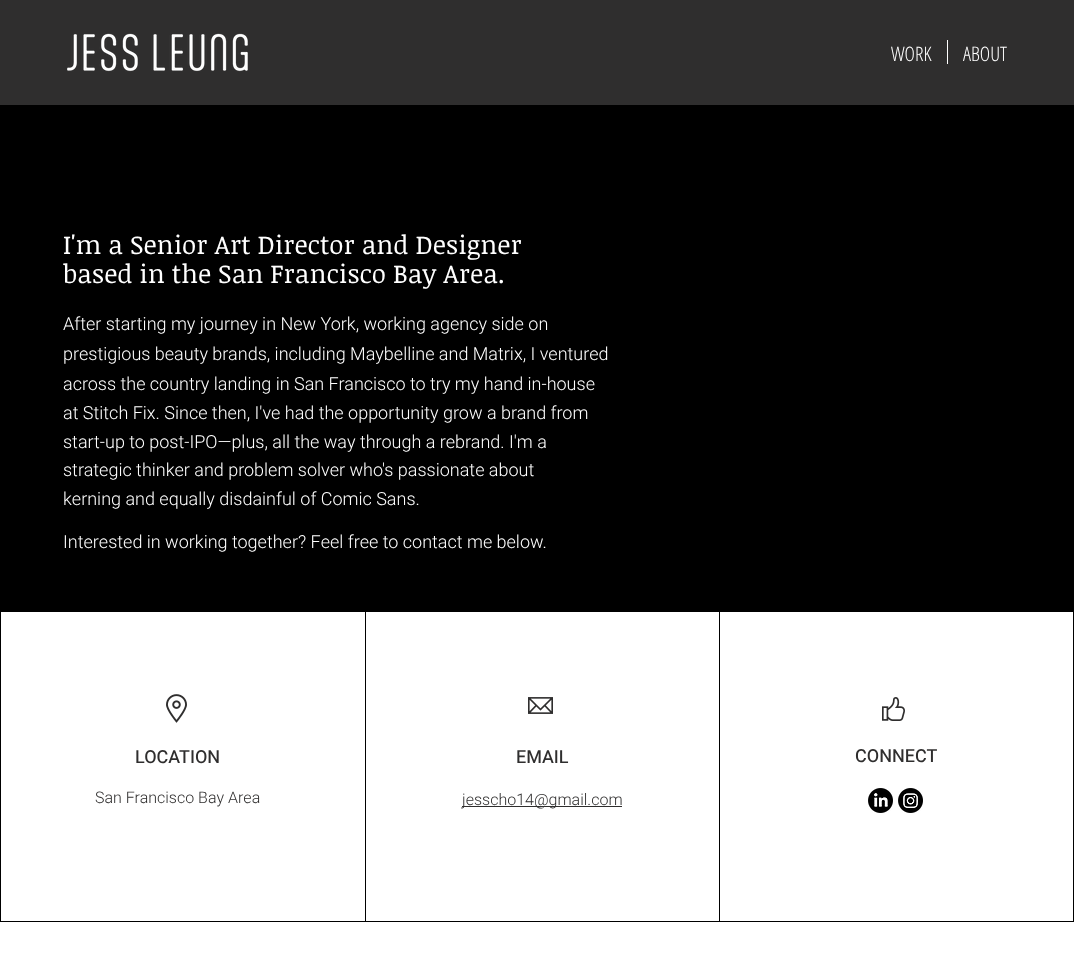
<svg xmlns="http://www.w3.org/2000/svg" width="1074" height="966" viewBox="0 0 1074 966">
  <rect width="100%" height="100%" fill="#ffffff"/>
  <rect x="0" y="0" width="1074" height="105" fill="#2f2e2e"/>
  <image x="67" y="33" width="181" height="39" href="img1.png"/>
  <text x="891" y="61" font-family="Open Sans Condensed" font-size="20" font-weight="300" fill="#ffffff">WORK</text>
  <rect x="947" y="40" width="1" height="24" fill="#ffffff"/>
  <text x="963" y="61" font-family="Open Sans Condensed" font-size="20" font-weight="300" fill="#ffffff">ABOUT</text>
  <rect x="0" y="105" width="1074" height="817" fill="#000000"/>
  <text x="63" y="254" font-family="Noticia Text" font-size="26" fill="#ffffff">I'm a Senior Art Director and Designer</text>
  <text x="63" y="283" font-family="Noticia Text" font-size="26" fill="#ffffff">based in the San Francisco Bay Area.</text>
  <text x="63" y="330" font-family="Heebo" font-size="18" font-weight="300" fill="#ffffff">After starting my journey in New York, working agency side on</text>
  <text x="63" y="360" font-family="Heebo" font-size="18" font-weight="300" fill="#ffffff">prestigious beauty brands, including Maybelline and Matrix, I ventured</text>
  <text x="63" y="390" font-family="Heebo" font-size="18" font-weight="300" fill="#ffffff">across the country landing in San Francisco to try my hand in-house</text>
  <text x="63" y="419" font-family="Heebo" font-size="18" font-weight="300" fill="#ffffff">at Stitch Fix. Since then, I've had the opportunity grow a brand from</text>
  <text x="63" y="448" font-family="Heebo" font-size="18" font-weight="300" fill="#ffffff">start-up to post-IPO—plus, all the way through a rebrand. I'm a</text>
  <text x="63" y="476" font-family="Heebo" font-size="18" font-weight="300" fill="#ffffff">strategic thinker and problem solver who's passionate about</text>
  <text x="63" y="505" font-family="Heebo" font-size="18" font-weight="300" fill="#ffffff">kerning and equally disdainful of Comic Sans.</text>
  <text x="63" y="548" font-family="Heebo" font-size="18" font-weight="300" fill="#ffffff">Interested in working together? Feel free to contact me below.</text>
  <rect x="1" y="612" width="364" height="309" fill="#ffffff"/>
  <image x="166" y="694" width="21" height="29" href="img2.png"/>
  <text x="135" y="763" font-family="Heebo" font-size="18" font-weight="500" fill="#2f2e2e">LOCATION</text>
  <text x="95" y="803" font-family="Heebo" font-size="16" font-weight="300" fill="#2f2e2e">San Francisco Bay Area</text>
  <rect x="366" y="612" width="353" height="309" fill="#ffffff"/>
  <image x="528" y="697" width="25" height="17" href="img3.png"/>
  <text x="516" y="763" font-family="Heebo" font-size="18" font-weight="500" fill="#2f2e2e">EMAIL</text>
  <rect x="462" y="806" width="160" height="1" fill="#2f2e2e"/>
  <text x="462" y="805" font-family="Heebo" font-size="16" font-weight="300" fill="#2f2e2e">jesscho14@gmail.com</text>
  <rect x="720" y="612" width="353" height="309" fill="#ffffff"/>
  <image x="882" y="697" width="23" height="24" href="img4.png"/>
  <text x="855" y="762" font-family="Heebo" font-size="18" font-weight="500" fill="#2f2e2e">CONNECT</text>
  <image x="868" y="788" width="25" height="25" href="img5.png"/>
  <image x="898" y="788" width="25" height="25" href="img6.png"/>
</svg>
